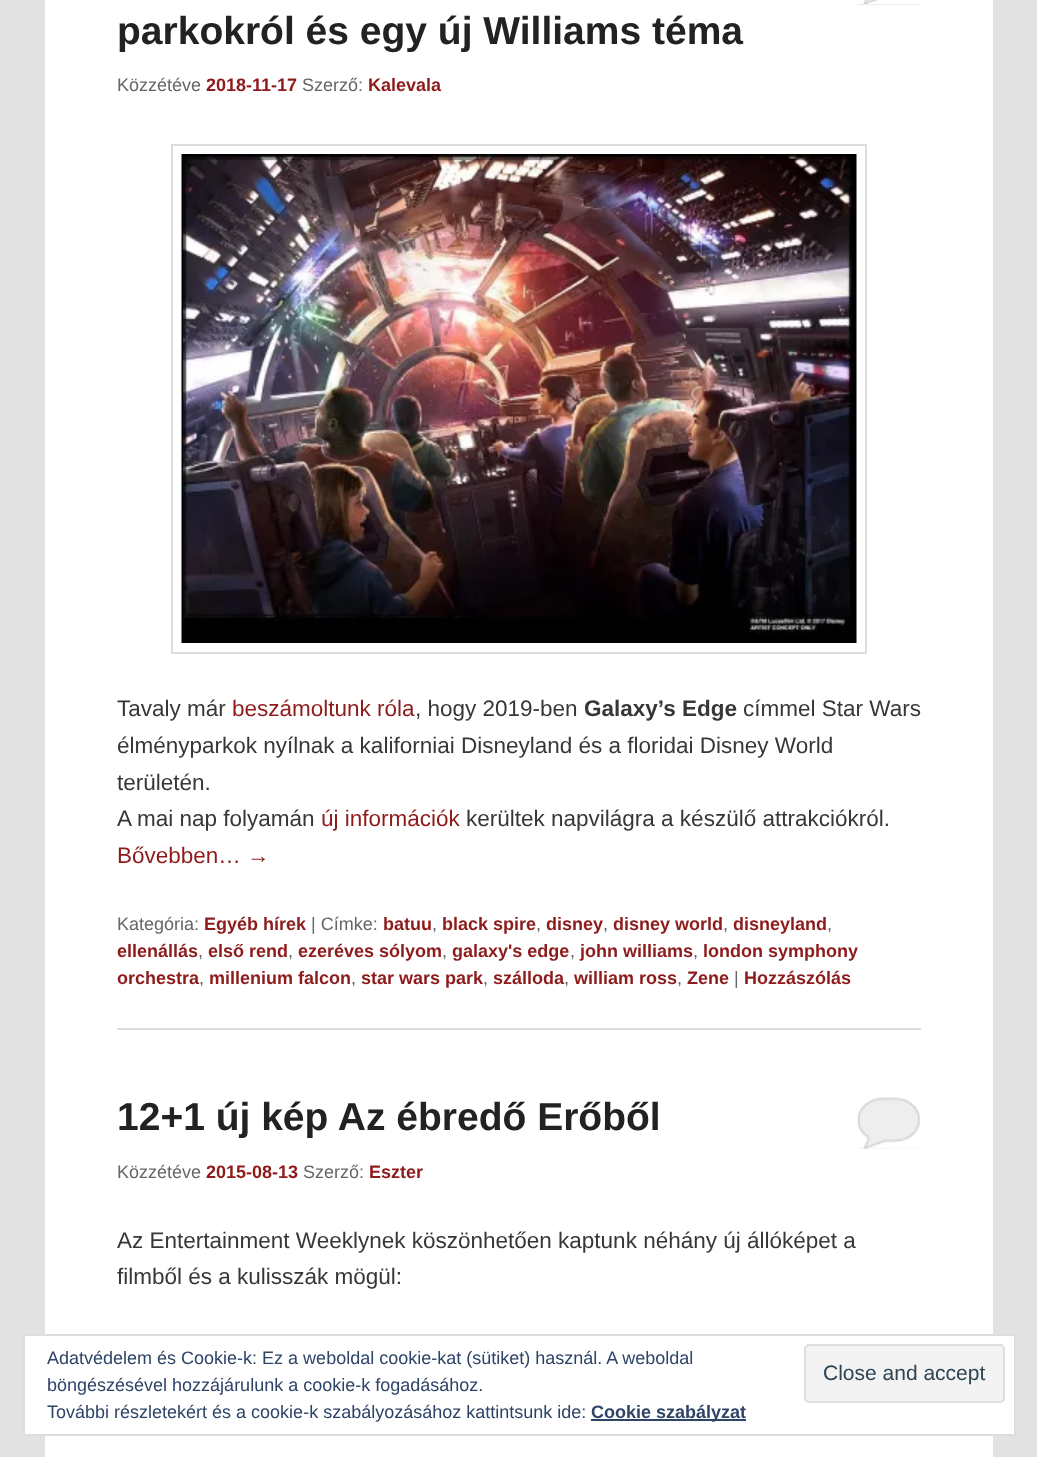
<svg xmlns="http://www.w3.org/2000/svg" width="1037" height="1457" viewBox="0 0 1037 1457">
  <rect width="100%" height="100%" fill="#e2e2e2"/>
  <rect x="45" y="0" width="948" height="1457" fill="#ffffff"/>
  <rect x="117" y="1028" width="804" height="2" fill="#dddddd"/>
  <rect x="857" y="0" width="64" height="5" fill="#eeeeee"/>
  <image x="857" y="0" width="64" height="4" href="img1.png"/>
  <text x="117" y="44" font-family="Liberation Sans" font-size="39" font-weight="bold" fill="#222222">parkokról és egy új Williams téma</text>
  <text x="117" y="91" font-family="Liberation Sans" font-size="18" fill="#666666">Közzétéve</text>
  <text x="206" y="91" font-family="Liberation Sans" font-size="18" font-weight="bold" fill="#8d1b1b">2018-11-17</text>
  <text x="302" y="91" font-family="Liberation Sans" font-size="18" fill="#666666">Szerző:</text>
  <text x="368" y="91" font-family="Liberation Sans" font-size="18" font-weight="bold" fill="#8d1b1b">Kalevala</text>
  <rect x="172" y="145" width="694" height="508" fill="none" stroke="#dddddd" stroke-width="2"/>
  <image x="181" y="154" width="676" height="489" href="img2.png"/>
  <text x="117" y="716" font-family="Liberation Sans" font-size="22.5" fill="#373737">Tavaly már</text>
  <text x="232" y="716" font-family="Liberation Sans" font-size="22.5" fill="#8d1b1b">beszámoltunk róla</text>
  <text x="415" y="716" font-family="Liberation Sans" font-size="22.5" fill="#373737">, hogy 2019-ben</text>
  <text x="584" y="716" font-family="Liberation Sans" font-size="22.5" font-weight="bold" fill="#373737">Galaxy’s Edge</text>
  <text x="743" y="716" font-family="Liberation Sans" font-size="22.5" fill="#373737">címmel Star Wars</text>
  <text x="117" y="753" font-family="Liberation Sans" font-size="22.5" fill="#373737">élményparkok nyílnak a kaliforniai Disneyland és a floridai Disney World</text>
  <text x="117" y="790" font-family="Liberation Sans" font-size="22.5" fill="#373737">területén.</text>
  <text x="117" y="826" font-family="Liberation Sans" font-size="22.5" fill="#373737">A mai nap folyamán</text>
  <text x="321" y="826" font-family="Liberation Sans" font-size="22.5" fill="#8d1b1b">új információk</text>
  <text x="466" y="826" font-family="Liberation Sans" font-size="22.5" fill="#373737">kerültek napvilágra a készülő attrakciókról.</text>
  <text x="117" y="863" font-family="Liberation Sans" font-size="22.5" fill="#8d1b1b">Bővebben… →</text>
  <text x="117" y="930" font-family="Liberation Sans" font-size="18" fill="#666666">Kategória:</text>
  <text x="204" y="930" font-family="Liberation Sans" font-size="18" font-weight="bold" fill="#8d1b1b">Egyéb hírek</text>
  <text x="311" y="930" font-family="Liberation Sans" font-size="18" fill="#666666">| Címke:</text>
  <text x="383" y="930" font-family="Liberation Sans" font-size="18" font-weight="bold" fill="#8d1b1b">batuu</text>
  <text x="432" y="930" font-family="Liberation Sans" font-size="18" fill="#666666">,</text>
  <text x="442" y="930" font-family="Liberation Sans" font-size="18" font-weight="bold" fill="#8d1b1b">black spire</text>
  <text x="536" y="930" font-family="Liberation Sans" font-size="18" fill="#666666">,</text>
  <text x="546" y="930" font-family="Liberation Sans" font-size="18" font-weight="bold" fill="#8d1b1b">disney</text>
  <text x="603" y="930" font-family="Liberation Sans" font-size="18" fill="#666666">,</text>
  <text x="613" y="930" font-family="Liberation Sans" font-size="18" font-weight="bold" fill="#8d1b1b">disney world</text>
  <text x="723" y="930" font-family="Liberation Sans" font-size="18" fill="#666666">,</text>
  <text x="733" y="930" font-family="Liberation Sans" font-size="18" font-weight="bold" fill="#8d1b1b">disneyland</text>
  <text x="827" y="930" font-family="Liberation Sans" font-size="18" fill="#666666">,</text>
  <text x="117" y="957" font-family="Liberation Sans" font-size="18" font-weight="bold" fill="#8d1b1b">ellenállás</text>
  <text x="198" y="957" font-family="Liberation Sans" font-size="18" fill="#666666">,</text>
  <text x="208" y="957" font-family="Liberation Sans" font-size="18" font-weight="bold" fill="#8d1b1b">első rend</text>
  <text x="288" y="957" font-family="Liberation Sans" font-size="18" fill="#666666">,</text>
  <text x="298" y="957" font-family="Liberation Sans" font-size="18" font-weight="bold" fill="#8d1b1b">ezeréves sólyom</text>
  <text x="442" y="957" font-family="Liberation Sans" font-size="18" fill="#666666">,</text>
  <text x="452" y="957" font-family="Liberation Sans" font-size="18" font-weight="bold" fill="#8d1b1b">galaxy's edge</text>
  <text x="570" y="957" font-family="Liberation Sans" font-size="18" fill="#666666">,</text>
  <text x="580" y="957" font-family="Liberation Sans" font-size="18" font-weight="bold" fill="#8d1b1b">john williams</text>
  <text x="693" y="957" font-family="Liberation Sans" font-size="18" fill="#666666">,</text>
  <text x="703" y="957" font-family="Liberation Sans" font-size="18" font-weight="bold" fill="#8d1b1b">london symphony</text>
  <text x="117" y="984" font-family="Liberation Sans" font-size="18" font-weight="bold" fill="#8d1b1b">orchestra</text>
  <text x="199" y="984" font-family="Liberation Sans" font-size="18" fill="#666666">,</text>
  <text x="209" y="984" font-family="Liberation Sans" font-size="18" font-weight="bold" fill="#8d1b1b">millenium falcon</text>
  <text x="351" y="984" font-family="Liberation Sans" font-size="18" fill="#666666">,</text>
  <text x="361" y="984" font-family="Liberation Sans" font-size="18" font-weight="bold" fill="#8d1b1b">star wars park</text>
  <text x="483" y="984" font-family="Liberation Sans" font-size="18" fill="#666666">,</text>
  <text x="493" y="984" font-family="Liberation Sans" font-size="18" font-weight="bold" fill="#8d1b1b">szálloda</text>
  <text x="564" y="984" font-family="Liberation Sans" font-size="18" fill="#666666">,</text>
  <text x="574" y="984" font-family="Liberation Sans" font-size="18" font-weight="bold" fill="#8d1b1b">william ross</text>
  <text x="677" y="984" font-family="Liberation Sans" font-size="18" fill="#666666">,</text>
  <text x="687" y="984" font-family="Liberation Sans" font-size="18" font-weight="bold" fill="#8d1b1b">Zene</text>
  <text x="734" y="984" font-family="Liberation Sans" font-size="18" fill="#666666">|</text>
  <text x="744" y="984" font-family="Liberation Sans" font-size="18" font-weight="bold" fill="#8d1b1b">Hozzászólás</text>
  <text x="117" y="1130" font-family="Liberation Sans" font-size="39" font-weight="bold" fill="#222222">12+1 új kép Az ébredő Erőből</text>
  <rect x="857" y="1097" width="64" height="52" fill="#eeeeee"/>
  <image x="857" y="1095" width="64" height="54" href="img3.png"/>
  <text x="117" y="1178" font-family="Liberation Sans" font-size="18" fill="#666666">Közzétéve</text>
  <text x="206" y="1178" font-family="Liberation Sans" font-size="18" font-weight="bold" fill="#8d1b1b">2015-08-13</text>
  <text x="303" y="1178" font-family="Liberation Sans" font-size="18" fill="#666666">Szerző:</text>
  <text x="369" y="1178" font-family="Liberation Sans" font-size="18" font-weight="bold" fill="#8d1b1b">Eszter</text>
  <text x="117" y="1248" font-family="Liberation Sans" font-size="22.5" fill="#373737">Az Entertainment Weeklynek köszönhetően kaptunk néhány új állóképet a</text>
  <text x="117" y="1284" font-family="Liberation Sans" font-size="22.5" fill="#373737">filmből és a kulisszák mögül:</text>
  <rect x="24" y="1335" width="991" height="100" fill="#ffffff" stroke="#dedede" stroke-width="2"/>
  <text x="47" y="1364" font-family="Liberation Sans" font-size="18" fill="#2e4467">Adatvédelem és Cookie-k: Ez a weboldal cookie-kat (sütiket) használ. A weboldal</text>
  <text x="47" y="1391" font-family="Liberation Sans" font-size="18" fill="#2e4467">böngészésével hozzájárulunk a cookie-k fogadásához.</text>
  <rect x="805" y="1345" width="199" height="57" rx="4" fill="#f3f3f3" stroke="#dedede" stroke-width="2"/>
  <text x="823" y="1380" font-family="Liberation Sans" font-size="21" fill="#2e4453">Close and accept</text>
  <text x="47" y="1418" font-family="Liberation Sans" font-size="18" fill="#2e4467">További részletekért és a cookie-k szabályozásához kattintsunk ide:</text>
  <rect x="591" y="1419" width="155" height="2" fill="#2e4467"/>
  <text x="591" y="1418" font-family="Liberation Sans" font-size="18" font-weight="bold" fill="#2e4467">Cookie szabályzat</text>
</svg>
